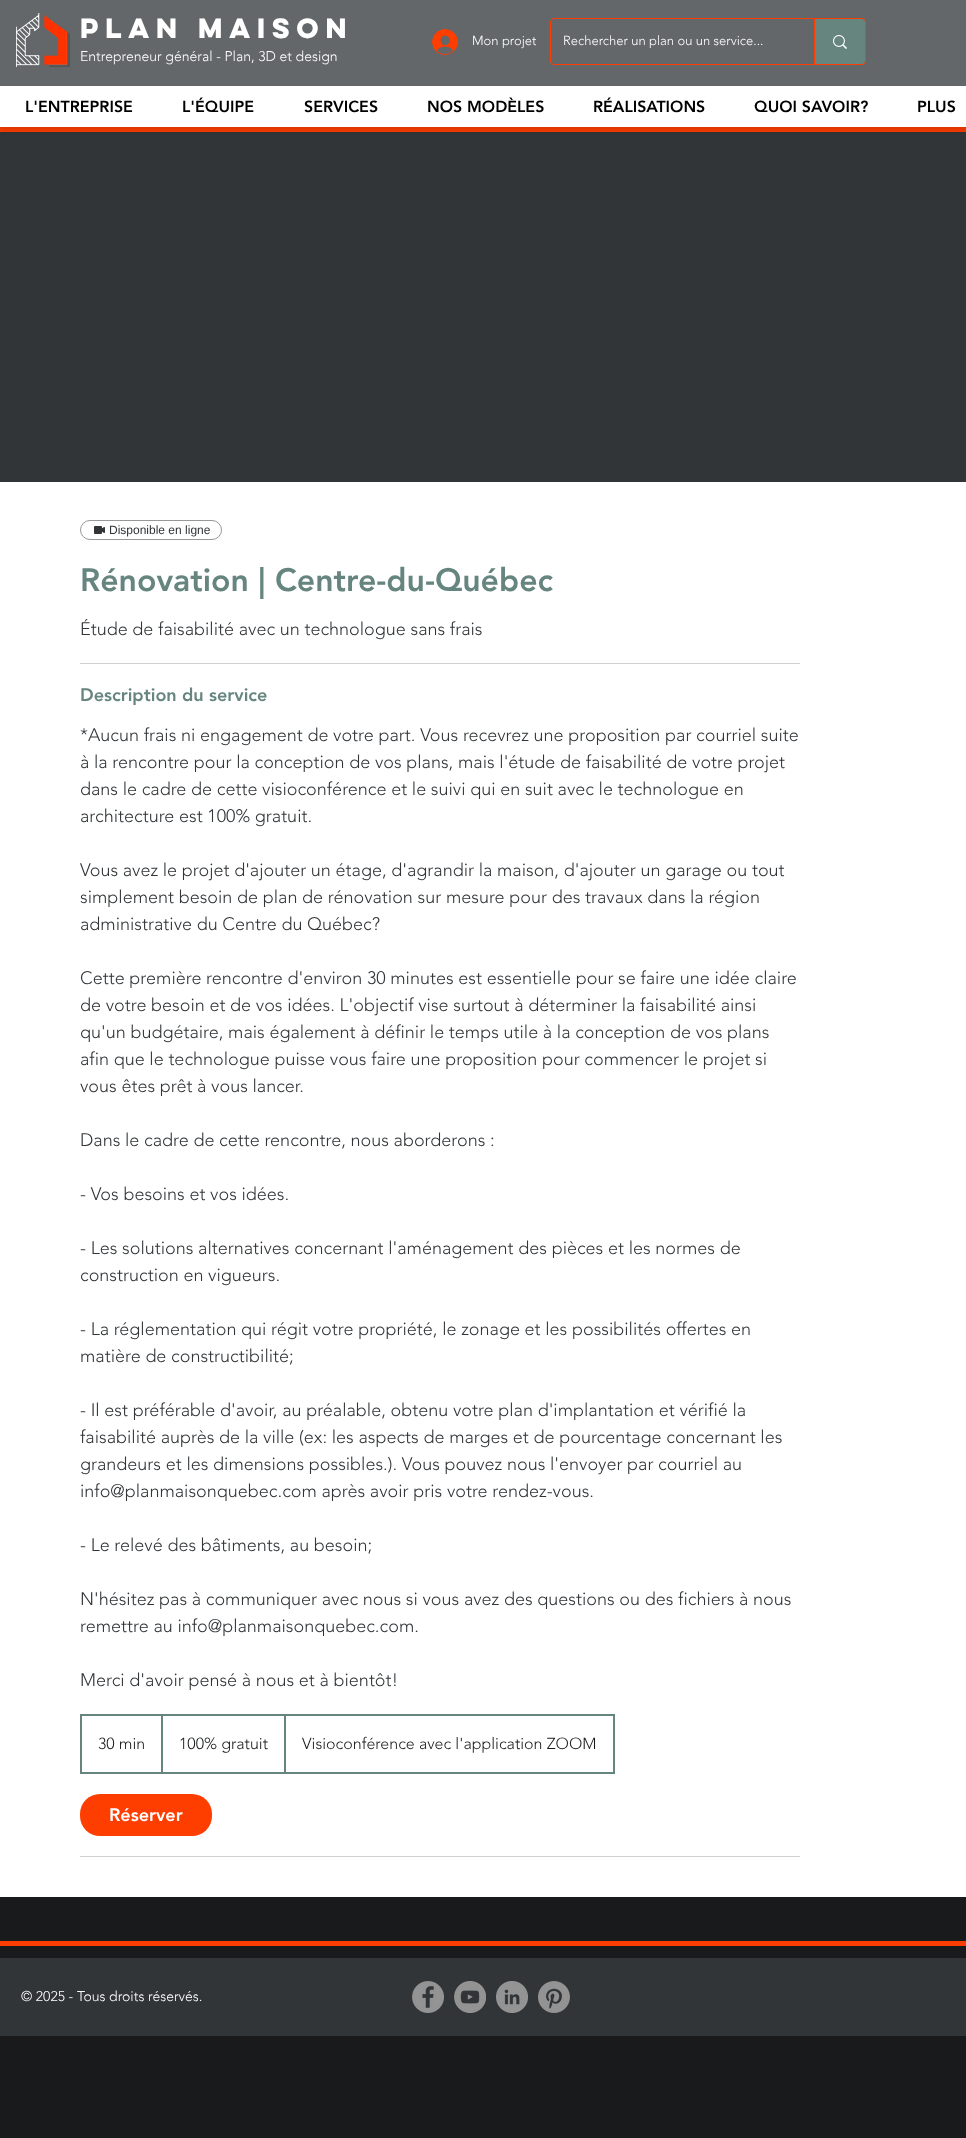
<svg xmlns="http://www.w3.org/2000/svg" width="966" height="2138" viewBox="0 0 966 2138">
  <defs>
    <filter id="blur1" x="-50%" y="-200%" width="200%" height="500%"><feGaussianBlur stdDeviation="2"/></filter>
  </defs>
  <rect width="100%" height="100%" fill="#181a1c"/>
  <rect x="0" y="0" width="966" height="86" fill="#636769"/>
  <image x="16" y="13" width="54" height="54" href="img1.png"/>
  <text x="80" y="38" font-family="'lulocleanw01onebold'" font-size="25" font-weight="bold" letter-spacing="1.25" fill="#ffffff">Plan Maison</text>
  <text x="80" y="61" font-family="'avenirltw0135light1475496'" font-size="14" font-weight="300" fill="#ffffff">Entrepreneur général - Plan, 3D et design</text>
  <image x="432" y="29" width="26" height="26" href="img2.png"/>
  <text x="472" y="45" font-family="'avenirltw0135light1475496'" font-size="13" font-weight="300" fill="#ffffff">Mon projet</text>
  <rect x="550.5" y="18.5" width="315" height="46" rx="3.5" fill="none" stroke="#fe3d00"/>
  <text x="563" y="45" font-family="'avenirltw0135light1475496'" font-size="13" font-weight="300" fill="#ffffff">Rechercher un plan ou un service...</text>
  <path d="M814 19H862C863.5 19 865 20.5 865 22V61C865 62.5 863.5 64 862 64H814Z" fill="#66857f"/>
  <rect x="814" y="19" width="1" height="45" fill="#fe3d00"/>
  <image x="833" y="35" width="14" height="14" href="img3.png"/>
  <rect x="0" y="127" width="966" height="5" fill="#fe3d00"/>
  <rect x="0" y="132" width="966" height="350" fill="#313538"/>
  <rect x="0" y="90" width="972" height="41" fill="#000000" fill-opacity="0.13" filter="url(#blur1)"/>
  <rect x="0" y="86" width="966" height="41" fill="#ffffff"/>
  <text x="25" y="112" font-family="'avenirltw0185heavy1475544'" font-size="16" font-weight="900" fill="#000000">L'ENTREPRISE</text>
  <text x="182" y="112" font-family="'avenirltw0185heavy1475544'" font-size="16" font-weight="900" fill="#000000">L'ÉQUIPE</text>
  <text x="304" y="112" font-family="'avenirltw0185heavy1475544'" font-size="16" font-weight="900" fill="#000000">SERVICES</text>
  <text x="427" y="112" font-family="'avenirltw0185heavy1475544'" font-size="16" font-weight="900" fill="#000000">NOS MODÈLES</text>
  <text x="593" y="112" font-family="'avenirltw0185heavy1475544'" font-size="16" font-weight="900" fill="#000000">RÉALISATIONS</text>
  <text x="754" y="112" font-family="'avenirltw0185heavy1475544'" font-size="16" font-weight="900" fill="#000000">QUOI SAVOIR?</text>
  <text x="917" y="112" font-family="'avenirltw0185heavy1475544'" font-size="16" font-weight="900" fill="#000000">PLUS</text>
  <rect x="0" y="482" width="966" height="1415" fill="#ffffff"/>
  <rect x="80.5" y="520.5" width="141" height="19" rx="9.5" fill="none" stroke="#979899"/>
  <image x="94" y="526" width="11" height="8" href="img4.png"/>
  <text x="109" y="534" font-family="Liberation Sans" font-size="12" fill="#313538">Disponible en ligne</text>
  <text x="80" y="591" font-family="'avenirltw0185heavy1475544'" font-size="32" font-weight="900" fill="#66857f">Rénovation | Centre-du-Québec</text>
  <text x="80" y="635" font-family="'avenirltw0135light1475496'" font-size="18" font-weight="300" fill="#313538">Étude de faisabilité avec un technologue sans frais</text>
  <rect x="80" y="663" width="720" height="1" fill="#d1d1d2"/>
  <text x="80" y="701" font-family="'avenirltw0185heavy1475544'" font-size="18" font-weight="900" fill="#66857f">Description du service</text>
  <text x="80" y="741" font-family="'avenirltw0135light1475496'" font-size="18" font-weight="300" fill="#313538">*Aucun frais ni engagement de votre part. Vous recevrez une proposition par courriel suite</text>
  <text x="80" y="768" font-family="'avenirltw0135light1475496'" font-size="18" font-weight="300" fill="#313538">à la rencontre pour la conception de vos plans, mais l'étude de faisabilité de votre projet</text>
  <text x="80" y="795" font-family="'avenirltw0135light1475496'" font-size="18" font-weight="300" fill="#313538">dans le cadre de cette visioconférence et le suivi qui en suit avec le technologue en</text>
  <text x="80" y="822" font-family="'avenirltw0135light1475496'" font-size="18" font-weight="300" fill="#313538">architecture est 100% gratuit.</text>
  <text x="80" y="876" font-family="'avenirltw0135light1475496'" font-size="18" font-weight="300" fill="#313538">Vous avez le projet d'ajouter un étage, d'agrandir la maison, d'ajouter un garage ou tout</text>
  <text x="80" y="903" font-family="'avenirltw0135light1475496'" font-size="18" font-weight="300" fill="#313538">simplement besoin de plan de rénovation sur mesure pour des travaux dans la région</text>
  <text x="80" y="930" font-family="'avenirltw0135light1475496'" font-size="18" font-weight="300" fill="#313538">administrative du Centre du Québec?</text>
  <text x="80" y="984" font-family="'avenirltw0135light1475496'" font-size="18" font-weight="300" fill="#313538">Cette première rencontre d'environ 30 minutes est essentielle pour se faire une idée claire</text>
  <text x="80" y="1011" font-family="'avenirltw0135light1475496'" font-size="18" font-weight="300" fill="#313538">de votre besoin et de vos idées. L'objectif vise surtout à déterminer la faisabilité ainsi</text>
  <text x="80" y="1038" font-family="'avenirltw0135light1475496'" font-size="18" font-weight="300" fill="#313538">qu'un budgétaire, mais également à définir le temps utile à la conception de vos plans</text>
  <text x="80" y="1065" font-family="'avenirltw0135light1475496'" font-size="18" font-weight="300" fill="#313538">afin que le technologue puisse vous faire une proposition pour commencer le projet si</text>
  <text x="80" y="1092" font-family="'avenirltw0135light1475496'" font-size="18" font-weight="300" fill="#313538">vous êtes prêt à vous lancer.</text>
  <text x="80" y="1146" font-family="'avenirltw0135light1475496'" font-size="18" font-weight="300" fill="#313538">Dans le cadre de cette rencontre, nous aborderons :</text>
  <text x="80" y="1200" font-family="'avenirltw0135light1475496'" font-size="18" font-weight="300" fill="#313538">- Vos besoins et vos idées.</text>
  <text x="80" y="1254" font-family="'avenirltw0135light1475496'" font-size="18" font-weight="300" fill="#313538">- Les solutions alternatives concernant l'aménagement des pièces et les normes de</text>
  <text x="80" y="1281" font-family="'avenirltw0135light1475496'" font-size="18" font-weight="300" fill="#313538">construction en vigueurs.</text>
  <text x="80" y="1335" font-family="'avenirltw0135light1475496'" font-size="18" font-weight="300" fill="#313538">- La réglementation qui régit votre propriété, le zonage et les possibilités offertes en</text>
  <text x="80" y="1362" font-family="'avenirltw0135light1475496'" font-size="18" font-weight="300" fill="#313538">matière de constructibilité;</text>
  <text x="80" y="1416" font-family="'avenirltw0135light1475496'" font-size="18" font-weight="300" fill="#313538">- Il est préférable d'avoir, au préalable, obtenu votre plan d'implantation et vérifié la</text>
  <text x="80" y="1443" font-family="'avenirltw0135light1475496'" font-size="18" font-weight="300" fill="#313538">faisabilité auprès de la ville (ex: les aspects de marges et de pourcentage concernant les</text>
  <text x="80" y="1470" font-family="'avenirltw0135light1475496'" font-size="18" font-weight="300" fill="#313538">grandeurs et les dimensions possibles.). Vous pouvez nous l'envoyer par courriel au</text>
  <text x="80" y="1497" font-family="'avenirltw0135light1475496'" font-size="18" font-weight="300" fill="#313538">info@planmaisonquebec.com après avoir pris votre rendez-vous.</text>
  <text x="80" y="1551" font-family="'avenirltw0135light1475496'" font-size="18" font-weight="300" fill="#313538">- Le relevé des bâtiments, au besoin;</text>
  <text x="80" y="1605" font-family="'avenirltw0135light1475496'" font-size="18" font-weight="300" fill="#313538">N'hésitez pas à communiquer avec nous si vous avez des questions ou des fichiers à nous</text>
  <text x="80" y="1632" font-family="'avenirltw0135light1475496'" font-size="18" font-weight="300" fill="#313538">remettre au info@planmaisonquebec.com.</text>
  <text x="80" y="1686" font-family="'avenirltw0135light1475496'" font-size="18" font-weight="300" fill="#313538">Merci d'avoir pensé à nous et à bientôt!</text>
  <rect x="81" y="1715" width="533" height="58" fill="none" stroke="#66857f" stroke-width="2"/>
  <text x="98" y="1749" font-family="'avenirltw0135light1475496'" font-size="16" font-weight="300" fill="#181a1c">30 min</text>
  <rect x="161" y="1716" width="2" height="56" fill="#66857f"/>
  <text x="179" y="1749" font-family="'avenirltw0135light1475496'" font-size="16" font-weight="300" fill="#181a1c">100% gratuit</text>
  <rect x="284" y="1716" width="2" height="56" fill="#66857f"/>
  <text x="302" y="1749" font-family="'avenirltw0135light1475496'" font-size="16" font-weight="300" fill="#181a1c">Visioconférence avec l'application ZOOM</text>
  <rect x="80" y="1794" width="132" height="42" rx="20" fill="#fe3d00"/>
  <text x="109" y="1821" font-family="'avenirltw0185heavy1475544'" font-size="18" font-weight="900" fill="#ffffff">Réserver</text>
  <rect x="80" y="1856" width="720" height="1" fill="#d1d1d2"/>
  <rect x="0" y="1941" width="966" height="5" fill="#fe3d00"/>
  <rect x="0" y="1958" width="966" height="78" fill="#313538"/>
  <text x="21" y="2001" font-family="'avenirltw0135light1475496'" font-size="14" font-weight="300" fill="#ffffff">© 2025 - Tous droits réservés.</text>
  <image x="412" y="1981" width="32" height="32" href="img5.png"/>
  <image x="454" y="1981" width="32" height="32" href="img6.png"/>
  <image x="496" y="1981" width="32" height="32" href="img7.png"/>
  <image x="538" y="1981" width="32" height="32" href="img8.png"/>
</svg>
